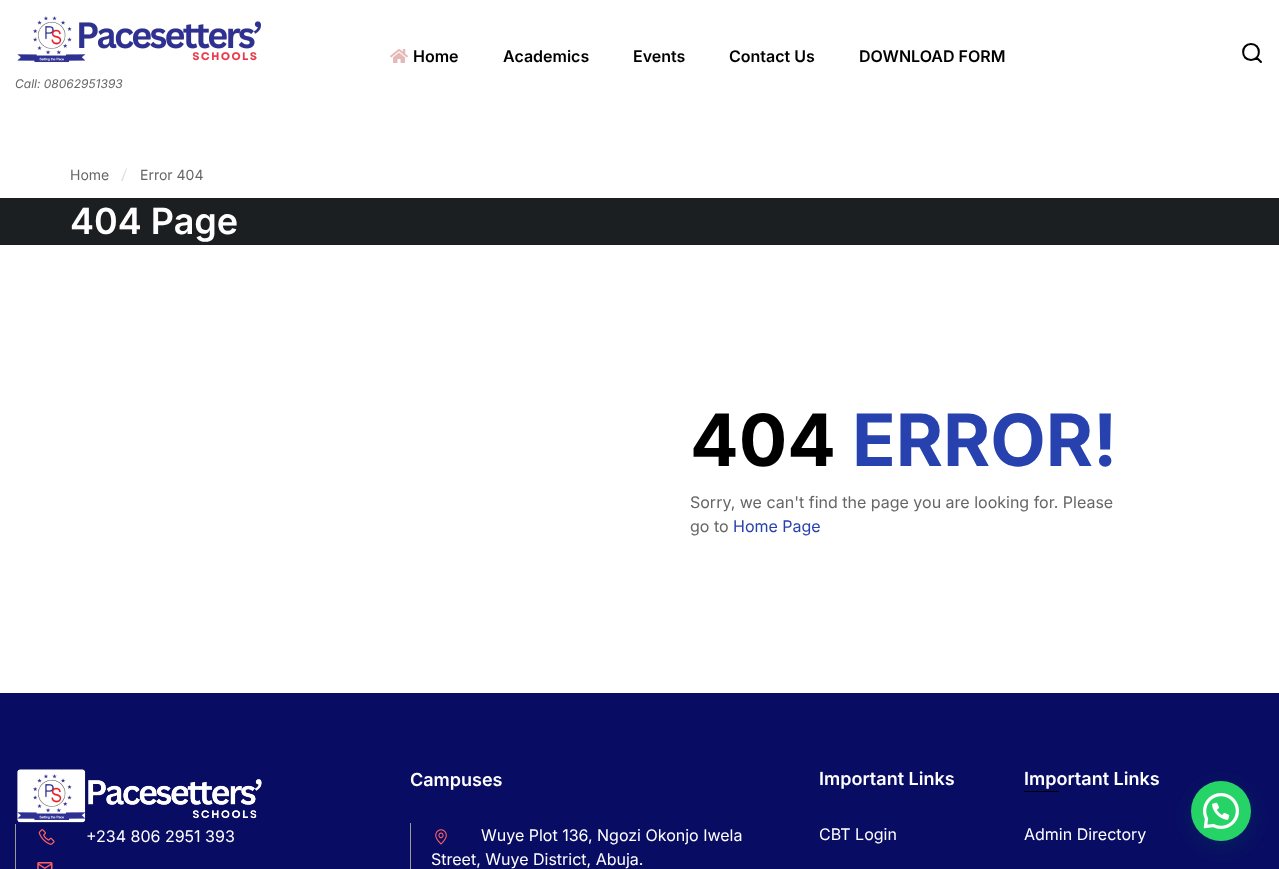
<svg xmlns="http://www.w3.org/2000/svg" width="1279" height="869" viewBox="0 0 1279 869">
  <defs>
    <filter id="blur1" x="-50%" y="-200%" width="200%" height="500%"><feGaussianBlur stdDeviation="12"/></filter>
  </defs>
  <rect width="100%" height="100%" fill="#ffffff"/>
  <image x="390" y="49" width="18" height="14" href="img1.png"/>
  <text x="413" y="62" font-family="Inter" font-size="16" font-weight="600" fill="#000000">Home</text>
  <text x="503" y="62" font-family="Inter" font-size="16" font-weight="600" fill="#000000">Academics</text>
  <text x="633" y="62" font-family="Inter" font-size="16" font-weight="600" fill="#000000">Events</text>
  <text x="729" y="62" font-family="Inter" font-size="16" font-weight="600" fill="#000000">Contact Us</text>
  <text x="859" y="62" font-family="Inter" font-size="16" font-weight="600" fill="#000000">DOWNLOAD FORM</text>
  <path d="M1251 60C1261.5 60 1261.5 44 1251 44C1240.5 44 1240.5 60 1251 60ZM1261 62L1256.5 57.5" fill="none" stroke="#000000" stroke-width="2" stroke-linecap="round" stroke-linejoin="round"/>
  <image x="17" y="16" width="244" height="47" href="img2.png"/>
  <text x="15" y="88" font-family="Inter" font-size="12" font-style="italic" fill="#666666">Call: 08062951393</text>
  <text x="70" y="180" font-family="Inter" font-size="14" fill="#666666">Home</text>
  <path d="M127 168.5L122.5 181H121L126 168.5Z" fill="#dddddd"/>
  <text x="140" y="180" font-family="Inter" font-size="14" fill="#666666">Error 404</text>
  <rect x="0" y="198" width="1279" height="47" fill="#1c1f22"/>
  <text x="70" y="234" font-family="Inter" font-size="36" font-weight="600" fill="#ffffff">404 Page</text>
  <text x="690" y="466" font-family="Inter" font-size="72" font-weight="bold" fill="#000000">404</text>
  <text x="852" y="466" font-family="Inter" font-size="72" font-weight="bold" fill="#2741ae">ERROR!</text>
  <text x="690" y="508" font-family="Inter" font-size="16" fill="#666666">Sorry, we can't find the page you are looking for. Please</text>
  <text x="690" y="532" font-family="Inter" font-size="16" fill="#666666">go to</text>
  <text x="733" y="532" font-family="Inter" font-size="16" fill="#2741ae">Home Page</text>
  <rect x="0" y="693" width="1279" height="176" fill="#080c63"/>
  <image x="17" y="769" width="245" height="54" href="img3.png"/>
  <rect x="15" y="824" width="1" height="45" fill="#999999"/>
  <image x="38" y="829" width="17" height="16" href="img4.png"/>
  <text x="86" y="842" font-family="Inter" font-size="16" fill="#ffffff">+234 806 2951 393</text>
  <image x="37" y="862" width="16" height="7" href="img5.png"/>
  <text x="410" y="786" font-family="Inter" font-size="18" font-weight="600" fill="#ffffff">Campuses</text>
  <rect x="410" y="823" width="1" height="46" fill="#999999"/>
  <image x="435" y="829" width="12" height="16" href="img6.png"/>
  <text x="481" y="841" font-family="Inter" font-size="16" fill="#ffffff">Wuye Plot 136, Ngozi Okonjo Iwela</text>
  <text x="431" y="865" font-family="Inter" font-size="16" fill="#ffffff">Street, Wuye District, Abuja.</text>
  <text x="819" y="785" font-family="Inter" font-size="18" font-weight="600" fill="#ffffff">Important Links</text>
  <text x="819" y="840" font-family="Inter" font-size="16" fill="#ffffff">CBT Login</text>
  <text x="1024" y="785" font-family="Inter" font-size="18" font-weight="600" fill="#ffffff">Important Links</text>
  <rect x="1024" y="791" width="35" height="1" fill="#000000"/>
  <text x="1024" y="840" font-family="Inter" font-size="16" fill="#ffffff">Admin Directory</text>
  <rect x="1192" y="787" width="60" height="60" rx="30" fill="#075e54" fill-opacity="0.24" filter="url(#blur1)"/>
  <circle cx="1221" cy="811" r="30" fill="#25d366"/>
  <image x="1203" y="793" width="36" height="36" href="img7.png"/>
</svg>
